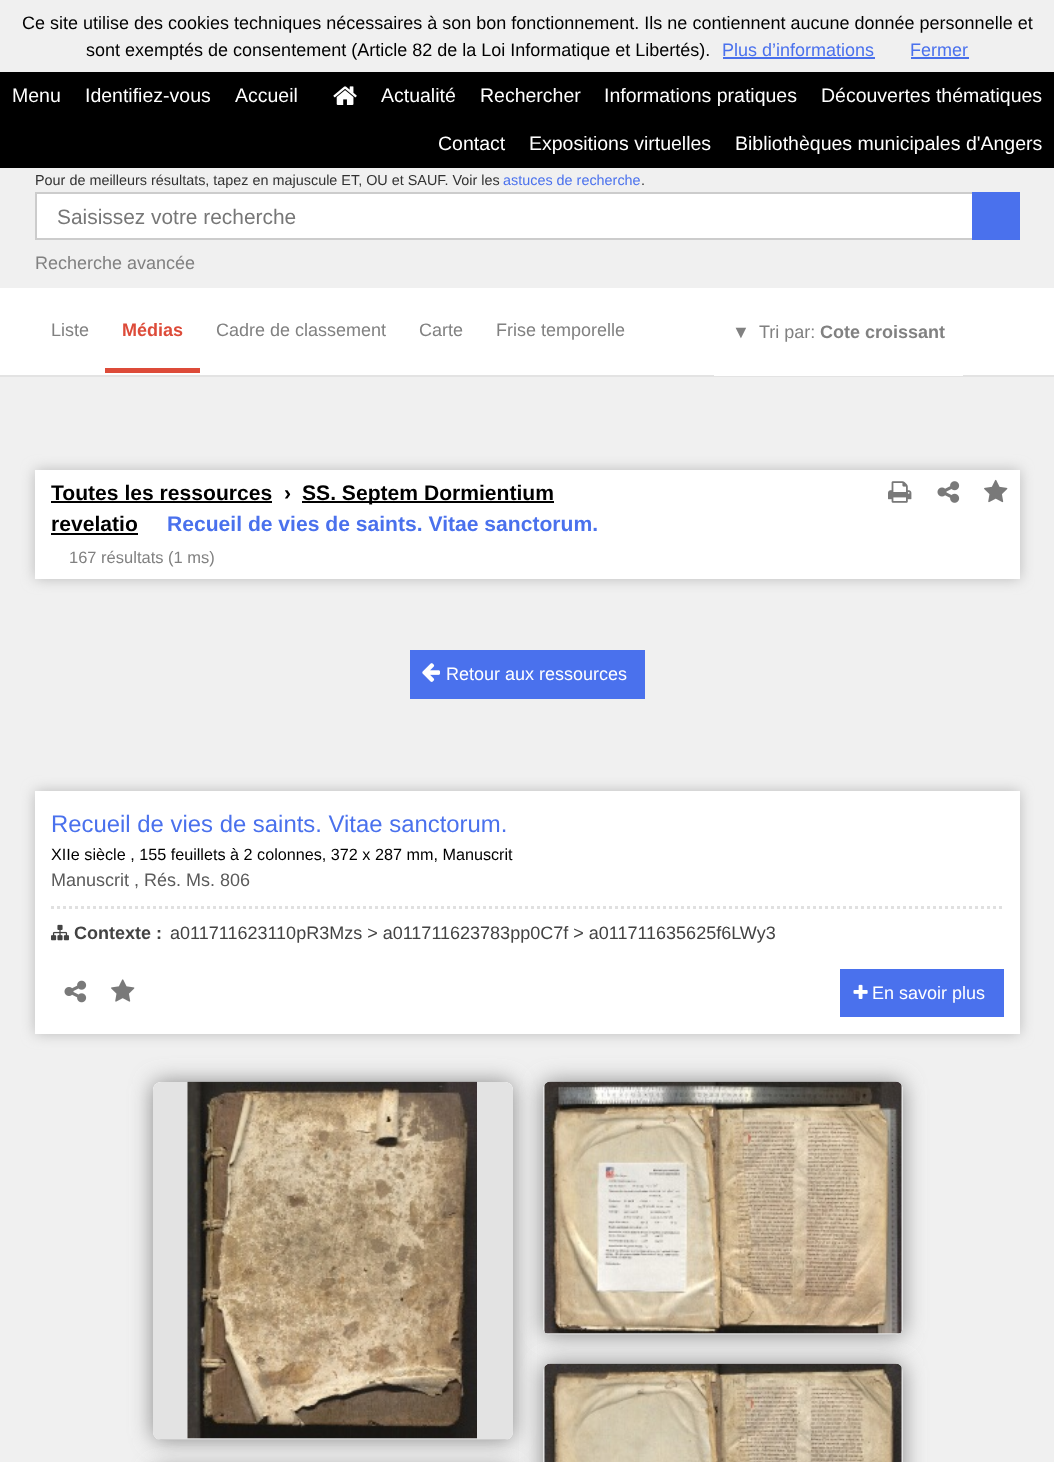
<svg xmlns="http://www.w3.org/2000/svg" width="1054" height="1462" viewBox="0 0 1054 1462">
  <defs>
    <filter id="blur1" x="-50%" y="-200%" width="200%" height="500%"><feGaussianBlur stdDeviation="7"/></filter>
    <filter id="blur2" x="-50%" y="-200%" width="200%" height="500%"><feGaussianBlur stdDeviation="11"/></filter>
    <clipPath id="clip1"><rect x="153" y="1082" width="360" height="358" rx="8"/></clipPath>
    <clipPath id="clip2"><rect x="543" y="1082" width="360" height="253" rx="8"/></clipPath>
  </defs>
  <rect width="100%" height="100%" fill="#f0f0f0"/>
  <text x="22" y="29" font-family="Liberation Sans" font-size="18" fill="#000000">Ce site utilise des cookies techniques nécessaires à son bon fonctionnement. Ils ne contiennent aucune donnée personnelle et</text>
  <text x="86" y="56" font-family="Liberation Sans" font-size="18" fill="#000000">sont exemptés de consentement (Article 82 de la Loi Informatique et Libertés).</text>
  <text x="722" y="56" font-family="Liberation Sans" font-size="18" fill="#4a71ed">Plus d’informations</text>
  <rect x="723" y="57" width="152" height="2" fill="#4970ec"/>
  <text x="910" y="56" font-family="Liberation Sans" font-size="18" fill="#4a71ed">Fermer</text>
  <rect x="911" y="57" width="58" height="2" fill="#4970ec"/>
  <rect x="0" y="72" width="1054" height="96" fill="#000000"/>
  <text x="12" y="102" font-family="Liberation Sans" font-size="19.5" fill="#ffffff">Menu</text>
  <text x="85" y="102" font-family="Liberation Sans" font-size="19.5" fill="#ffffff">Identifiez-vous</text>
  <text x="235" y="102" font-family="Liberation Sans" font-size="19.5" fill="#ffffff">Accueil</text>
  <image x="333" y="86" width="24" height="19" href="img1.png"/>
  <text x="381" y="102" font-family="Liberation Sans" font-size="19.5" fill="#ffffff">Actualité</text>
  <text x="480" y="102" font-family="Liberation Sans" font-size="19.5" fill="#ffffff">Rechercher</text>
  <text x="604" y="102" font-family="Liberation Sans" font-size="19.5" fill="#ffffff">Informations pratiques</text>
  <text x="821" y="102" font-family="Liberation Sans" font-size="19.5" fill="#ffffff">Découvertes thématiques</text>
  <text x="438" y="150" font-family="Liberation Sans" font-size="19.5" fill="#ffffff">Contact</text>
  <text x="529" y="150" font-family="Liberation Sans" font-size="19.5" fill="#ffffff">Expositions virtuelles</text>
  <text x="735" y="150" font-family="Liberation Sans" font-size="19.5" fill="#ffffff">Bibliothèques municipales d'Angers</text>
  <text x="35" y="185" font-family="Liberation Sans" font-size="14.4" fill="#323232">Pour de meilleurs résultats, tapez en majuscule ET, OU et SAUF. Voir les</text>
  <text x="503" y="185" font-family="Liberation Sans" font-size="14.4" fill="#4a71ed">astuces de recherche</text>
  <text x="641" y="185" font-family="Liberation Sans" font-size="14.4" fill="#323232">.</text>
  <rect x="37" y="194" width="935" height="44" fill="#ffffff"/>
  <rect x="36" y="193" width="983" height="46" fill="none" stroke="#cccccc" stroke-width="2"/>
  <text x="57" y="224" font-family="Liberation Sans" font-size="20.9" fill="#777777">Saisissez votre recherche</text>
  <rect x="972" y="192" width="48" height="48" fill="#4a71ed"/>
  <text x="35" y="269" font-family="Liberation Sans" font-size="18" fill="#818181">Recherche avancée</text>
  <rect x="0" y="288" width="1054" height="87" fill="#ffffff"/>
  <rect x="0" y="375" width="1054" height="2" fill="#e3e3e3"/>
  <text x="51" y="336" font-family="Liberation Sans" font-size="18" fill="#818181">Liste</text>
  <rect x="105" y="368" width="95" height="5" fill="#dd4b39"/>
  <text x="122" y="336" font-family="Liberation Sans" font-size="18" font-weight="bold" fill="#dd4b39">Médias</text>
  <text x="216" y="336" font-family="Liberation Sans" font-size="18" fill="#818181">Cadre de classement</text>
  <text x="419" y="336" font-family="Liberation Sans" font-size="18" fill="#818181">Carte</text>
  <text x="496" y="336" font-family="Liberation Sans" font-size="18" fill="#818181">Frise temporelle</text>
  <rect x="714" y="375" width="249" height="1" fill="#ffffff"/>
  <text x="732" y="338" font-family="Liberation Sans" font-size="18" fill="#818181">▼</text>
  <text x="759" y="338" font-family="Liberation Sans" font-size="18" fill="#818181">Tri par:</text>
  <text x="820" y="338" font-family="Liberation Sans" font-size="18" font-weight="bold" fill="#818181">Cote croissant</text>
  <rect x="35" y="470" width="985" height="109" fill="#bbbbbb" filter="url(#blur1)"/>
  <rect x="35" y="470" width="985" height="109" fill="#ffffff"/>
  <text x="51" y="500" font-family="Liberation Sans" font-size="21.1" font-weight="bold" fill="#000000">Toutes les ressources</text>
  <rect x="51" y="501" width="221" height="2" fill="#000000"/>
  <text x="284" y="500" font-family="Liberation Sans" font-size="21.1" font-weight="bold" fill="#000000">›</text>
  <rect x="302" y="501" width="252" height="2" fill="#000000"/>
  <text x="302" y="500" font-family="Liberation Sans" font-size="21.1" font-weight="bold" fill="#000000">SS. Septem Dormientium</text>
  <text x="51" y="531" font-family="Liberation Sans" font-size="21.1" font-weight="bold" fill="#000000">revelatio</text>
  <rect x="51" y="533" width="87" height="2" fill="#000000"/>
  <text x="167" y="531" font-family="Liberation Sans" font-size="21.1" font-weight="bold" fill="#4a71ed">Recueil de vies de saints. Vitae sanctorum.</text>
  <text x="69" y="563" font-family="Liberation Sans" font-size="16.5" fill="#818181">167 résultats (1 ms)</text>
  <image x="888" y="481" width="24" height="22" href="img2.png"/>
  <image x="937" y="481" width="23" height="22" href="img3.png"/>
  <image x="984" y="479" width="24" height="24" href="img4.png"/>
  <rect x="410" y="650" width="235" height="49" fill="#4a71ed"/>
  <image x="422" y="663" width="18" height="19" href="img5.png"/>
  <text x="446" y="680" font-family="Liberation Sans" font-size="18" fill="#ffffff">Retour aux ressources</text>
  <rect x="35" y="791" width="985" height="243" fill="#bbbbbb" filter="url(#blur1)"/>
  <rect x="35" y="791" width="985" height="243" fill="#ffffff"/>
  <text x="51" y="832" font-family="Liberation Sans" font-size="23.9" fill="#4a71ed">Recueil de vies de saints. Vitae sanctorum.</text>
  <text x="51" y="860" font-family="Liberation Sans" font-size="16.2" fill="#000000">XIIe siècle , 155 feuillets à 2 colonnes, 372 x 287 mm, Manuscrit</text>
  <text x="51" y="886" font-family="Liberation Sans" font-size="18" fill="#5b5b5b">Manuscrit , Rés. Ms. 806</text>
  <path d="M51 907.5H1003.5" fill="none" stroke="#e0e0e0" stroke-width="3" stroke-dasharray="3 3"/>
  <image x="51" y="924" width="18" height="17" href="img6.png"/>
  <text x="74" y="939" font-family="Liberation Sans" font-size="18" font-weight="bold" fill="#434343">Contexte :</text>
  <text x="170" y="939" font-family="Liberation Sans" font-size="18" fill="#434343">a011711623110pR3Mzs &gt; a011711623783pp0C7f &gt; a011711635625f6LWy3</text>
  <image x="64" y="980" width="23" height="23" href="img7.png"/>
  <image x="111" y="979" width="24" height="23" href="img8.png"/>
  <rect x="840" y="969" width="164" height="48" fill="#4a71ed"/>
  <image x="853" y="984" width="15" height="15" href="img9.png"/>
  <text x="872" y="999" font-family="Liberation Sans" font-size="18" fill="#ffffff">En savoir plus</text>
  <rect x="153" y="1082" width="360" height="358" rx="8" fill="#888888" filter="url(#blur2)"/>
  <rect x="153" y="1082" width="360" height="358" rx="8" fill="#ffffff"/>
  <g clip-path="url(#clip1)">
    <path d="M161 1082H505C509.5 1082 513 1085.5 513 1090V1439H153V1090C153 1085.5 156.5 1082 161 1082Z" fill="#e3e3e3"/>
  </g>
  <image x="187" y="1081" width="290" height="358" href="img10.png"/>
  <g clip-path="url(#clip1)">
    <rect x="153" y="1439" width="360" height="1" fill="#cccccc"/>
  </g>
  <rect x="543" y="1082" width="360" height="253" rx="8" fill="#888888" filter="url(#blur2)"/>
  <rect x="543" y="1082" width="360" height="253" rx="8" fill="#ffffff"/>
  <g clip-path="url(#clip2)">
    <path d="M551 1082H895C899.5 1082 903 1085.5 903 1090V1334H543V1090C543 1085.5 546.5 1082 551 1082Z" fill="#e3e3e3"/>
  </g>
  <image x="544" y="1081" width="358" height="253" href="img11.png"/>
  <g clip-path="url(#clip2)">
    <rect x="543" y="1334" width="360" height="1" fill="#cccccc"/>
  </g>
  <rect x="543" y="1364" width="360" height="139" rx="8" fill="#888888" filter="url(#blur2)"/>
  <path d="M551 1364H895C899.5 1364 903 1367.5 903 1372V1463H543V1372C543 1367.5 546.5 1364 551 1364Z" fill="#e3e3e3"/>
  <image x="544" y="1363" width="358" height="99" href="img12.png"/>
  <rect x="153" y="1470" width="360" height="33" rx="8" fill="#888888" filter="url(#blur2)"/>
</svg>
